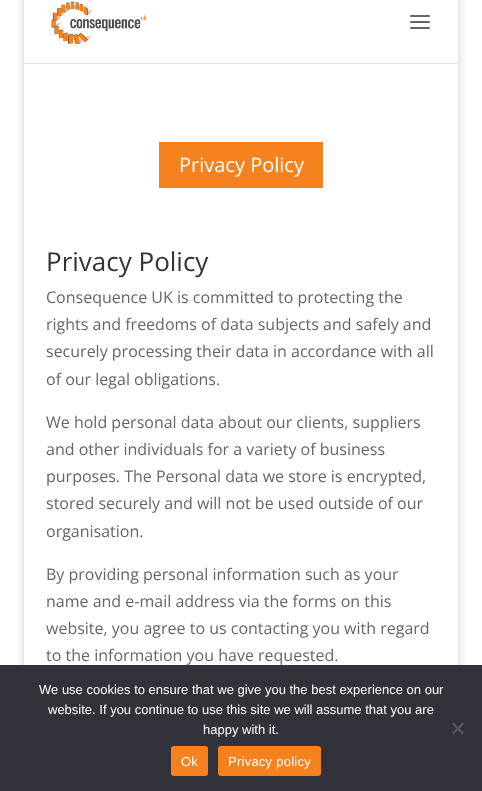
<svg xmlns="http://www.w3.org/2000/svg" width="482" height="791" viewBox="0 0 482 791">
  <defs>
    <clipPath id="clip1"><path d="M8 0H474V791H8ZM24-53H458V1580H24Z" clip-rule="evenodd"/></clipPath>
    <filter id="blur1" x="-50%" y="-200%" width="200%" height="500%"><feGaussianBlur stdDeviation="5"/></filter>
  </defs>
  <rect width="100%" height="100%" fill="#ffffff"/>
  <g clip-path="url(#clip1)">
    <rect x="24" y="-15" width="434" height="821" fill="#000000" fill-opacity="0.2" filter="url(#blur1)"/>
  </g>
  <rect x="24" y="63" width="434" height="1" fill="#e6e6e6"/>
  <image x="51" y="1" width="96" height="44" href="img1.png"/>
  <image x="410" y="15" width="20" height="14" href="img2.png"/>
  <rect x="159" y="142" width="164" height="46" fill="#f6821f"/>
  <text x="179" y="172" font-family="Open Sans" font-size="20" fill="#ffffff">Privacy Policy</text>
  <text x="46" y="271" font-family="Open Sans" font-size="26" fill="#333333">Privacy Policy</text>
  <text x="46" y="303" font-family="Open Sans" font-size="16" fill="#666666">Consequence UK is committed to protecting the</text>
  <text x="46" y="330" font-family="Open Sans" font-size="16" fill="#666666">rights and freedoms of data subjects and safely and</text>
  <text x="46" y="357" font-family="Open Sans" font-size="16" fill="#666666">securely processing their data in accordance with all</text>
  <text x="46" y="385" font-family="Open Sans" font-size="16" fill="#666666">of our legal obligations.</text>
  <text x="46" y="428" font-family="Open Sans" font-size="16" fill="#666666">We hold personal data about our clients, suppliers</text>
  <text x="46" y="455" font-family="Open Sans" font-size="16" fill="#666666">and other individuals for a variety of business</text>
  <text x="46" y="482" font-family="Open Sans" font-size="16" fill="#666666">purposes. The Personal data we store is encrypted,</text>
  <text x="46" y="509" font-family="Open Sans" font-size="16" fill="#666666">stored securely and will not be used outside of our</text>
  <text x="46" y="537" font-family="Open Sans" font-size="16" fill="#666666">organisation.</text>
  <text x="46" y="580" font-family="Open Sans" font-size="16" fill="#666666">By providing personal information such as your</text>
  <text x="46" y="607" font-family="Open Sans" font-size="16" fill="#666666">name and e-mail address via the forms on this</text>
  <text x="46" y="634" font-family="Open Sans" font-size="16" fill="#666666">website, you agree to us contacting you with regard</text>
  <text x="46" y="661" font-family="Open Sans" font-size="16" fill="#666666">to the information you have requested.</text>
  <rect x="0" y="665" width="482" height="126" fill="#32323a"/>
  <text x="39" y="694" font-family="Liberation Sans" font-size="13" fill="#ffffff">We use cookies to ensure that we give you the best experience on our</text>
  <text x="48" y="714" font-family="Liberation Sans" font-size="13" fill="#ffffff">website. If you continue to use this site we will assume that you are</text>
  <text x="203" y="734" font-family="Liberation Sans" font-size="13" fill="#ffffff">happy with it.</text>
  <path d="M462.5 722.5L464 724L453.5 734.5L452 733Z" fill="#59595d"/>
  <path d="M452 724L453.5 722.5L464 733L462.5 734.5Z" fill="#59595d"/>
  <rect x="171" y="746" width="37" height="30" rx="3" fill="#f6821f"/>
  <text x="181" y="766" font-family="Liberation Sans" font-size="13" letter-spacing="0.25" fill="#ffffff">Ok</text>
  <rect x="218" y="746" width="103" height="30" rx="3" fill="#f6821f"/>
  <text x="228" y="766" font-family="Liberation Sans" font-size="13" letter-spacing="0.25" fill="#ffffff">Privacy policy</text>
</svg>
